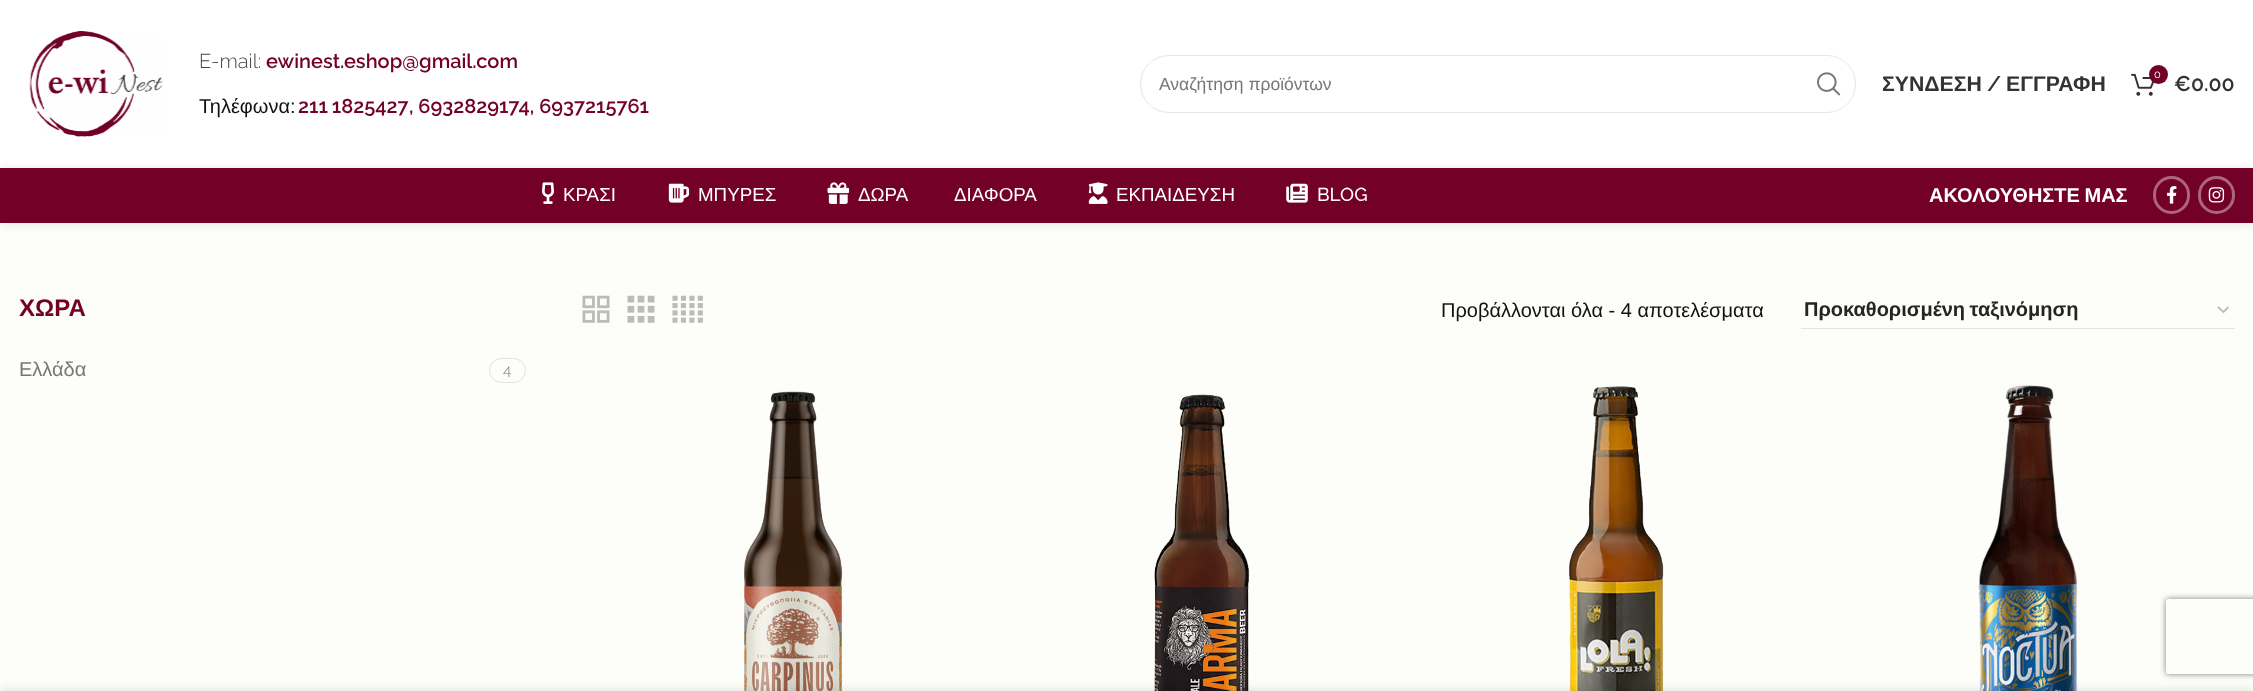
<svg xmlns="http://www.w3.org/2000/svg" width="2253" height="691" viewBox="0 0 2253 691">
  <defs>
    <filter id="blur1" x="-50%" y="-200%" width="200%" height="500%"><feGaussianBlur stdDeviation="5"/></filter>
    <clipPath id="clip1"><path d="M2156 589H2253V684H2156ZM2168.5 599H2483.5C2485 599 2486 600 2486 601.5V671.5C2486 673 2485 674 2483.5 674H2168.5C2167 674 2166 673 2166 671.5V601.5C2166 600 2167 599 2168.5 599Z" clip-rule="evenodd"/></clipPath>
    <filter id="blur2" x="-50%" y="-200%" width="200%" height="500%"><feGaussianBlur stdDeviation="3"/></filter>
    <filter id="blur3" x="-50%" y="-200%" width="200%" height="500%"><feGaussianBlur stdDeviation="5.5"/></filter>
  </defs>
  <rect width="100%" height="100%" fill="#ffffff"/>
  <image x="29" y="31" width="134" height="106" href="img1.png"/>
  <text x="199" y="68" font-family="Raleway" font-size="20" font-weight="300" fill="#444444">E-mail:</text>
  <text x="266" y="68" font-family="Raleway" font-size="20" font-weight="600" fill="#730026">ewinest.eshop@gmail.com</text>
  <text x="199" y="113" font-family="Liberation Sans" font-size="20" fill="#111111">Τηλέφωνα:</text>
  <text x="298" y="113" word-spacing="-1" font-family="Raleway" font-size="20" font-weight="600" fill="#730026">211 1825427</text>
  <text x="409" y="113" font-family="Raleway" font-size="20" font-weight="600" fill="#730026">, 6932829174, 6937215761</text>
  <rect x="1140.5" y="55.5" width="715" height="57" rx="28.5" fill="none" stroke="#e6e6e6"/>
  <text x="1159" y="90" font-family="Liberation Sans" font-size="17.5" fill="#767676">Αναζήτηση προϊόντων</text>
  <image x="1817" y="72" width="24" height="24" href="img2.png"/>
  <text x="1882" y="91" font-family="Liberation Sans" font-size="21.25" font-weight="bold" fill="#333333">ΣΥΝΔΕΣΗ</text>
  <text x="1987" y="91" font-family="Raleway" font-size="21.25" font-weight="600" fill="#333333">/</text>
  <text x="2006" y="91" font-family="Liberation Sans" font-size="21.25" font-weight="bold" fill="#333333">ΕΓΓΡΑΦΗ</text>
  <image x="2131" y="73" width="24" height="23" href="img3.png"/>
  <circle cx="2158.5" cy="74.5" r="9.5" fill="#730026"/>
  <text x="2154" y="78" font-family="Raleway" font-size="11" fill="#ffffff">0</text>
  <text x="2174" y="91" font-family="Raleway" font-size="21.25" font-weight="600" fill="#333333">€0.00</text>
  <rect x="0" y="223" width="2253" height="468" fill="#fdfdf9"/>
  <rect x="0" y="169" width="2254" height="55" fill="#000000" fill-opacity="0.1" filter="url(#blur1)"/>
  <rect x="0" y="168" width="2253" height="55" fill="#730026"/>
  <image x="542" y="182" width="12" height="22" href="img4.png"/>
  <text x="563" y="201" font-family="Liberation Sans" font-size="18.75" fill="#ffffff">ΚΡΑΣΙ</text>
  <image x="621" y="193" width="9" height="5" href="img5.png"/>
  <image x="668" y="183" width="22" height="20" href="img6.png"/>
  <text x="698" y="201" font-family="Liberation Sans" font-size="18.75" fill="#ffffff">ΜΠΥΡΕΣ</text>
  <image x="781" y="193" width="9" height="5" href="img5.png"/>
  <image x="827" y="182" width="23" height="22" href="img7.png"/>
  <text x="858" y="201" font-family="Liberation Sans" font-size="18.75" fill="#ffffff">ΔΩΡΑ</text>
  <text x="954" y="201" font-family="Liberation Sans" font-size="18.75" fill="#ffffff">ΔΙΑΦΟΡΑ</text>
  <image x="1043" y="193" width="8" height="5" href="img8.png"/>
  <image x="1088" y="182" width="20" height="22" href="img9.png"/>
  <text x="1116" y="201" font-family="Liberation Sans" font-size="18.75" fill="#ffffff">ΕΚΠΑΙΔΕΥΣΗ</text>
  <image x="1240" y="193" width="9" height="5" href="img10.png"/>
  <image x="1286" y="183" width="22" height="20" href="img11.png"/>
  <text x="1317" y="201" font-family="Raleway" font-size="18.75" font-weight="500" fill="#ffffff">BLOG</text>
  <image x="1373" y="193" width="8" height="5" href="img8.png"/>
  <text x="1929" y="202" word-spacing="-1" font-family="Liberation Sans" font-size="20" font-weight="bold" fill="#ffffff">ΑΚΟΛΟΥΘΗΣΤΕ ΜΑΣ</text>
  <rect x="2154.5" y="177.5" width="34" height="35" rx="17" fill="none" stroke="#ab667d" stroke-width="3"/>
  <image x="2167" y="186" width="10" height="18" href="img12.png"/>
  <rect x="2199.5" y="177.5" width="34" height="35" rx="17" fill="none" stroke="#ab667d" stroke-width="3"/>
  <image x="2208" y="187" width="17" height="16" href="img13.png"/>
  <text x="19" y="316" font-family="Liberation Sans" font-size="24" font-weight="bold" fill="#730026">ΧΩΡΑ</text>
  <text x="19" y="376" font-family="Liberation Sans" font-size="20" fill="#767676">Ελλάδα</text>
  <rect x="489.5" y="358.5" width="36" height="24" rx="12" fill="none" stroke="#e2e2df"/>
  <text x="503" y="375" font-family="Raleway" font-size="15" font-weight="300" fill="#767676">4</text>
  <image x="582" y="295" width="28" height="28" href="img14.png"/>
  <image x="627" y="295" width="28" height="28" href="img15.png"/>
  <image x="672" y="295" width="31" height="28" href="img16.png"/>
  <text x="1441" y="317" font-family="Liberation Sans" font-size="20" fill="#111111">Προβάλλονται όλα - 4 αποτελέσματα</text>
  <path d="M2218 307L2223.5 312L2228.5 307" fill="none" stroke="#bbbbbb" stroke-width="1.8"/>
  <rect x="1801" y="328" width="434" height="1" fill="#e4e4e0"/>
  <text x="1804" y="316" word-spacing="-1" font-family="Liberation Sans" font-size="20" font-weight="bold" fill="#242424">Προκαθορισμένη ταξινόμηση</text>
  <image x="744" y="391" width="99" height="300" href="img17.png"/>
  <image x="1154" y="394" width="96" height="297" href="img18.png"/>
  <image x="1569" y="386" width="95" height="305" href="img19.png"/>
  <image x="1978" y="385" width="100" height="306" href="img20.png"/>
  <g clip-path="url(#clip1)">
    <rect x="2166" y="599" width="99" height="75" rx="2.5" fill="#808080" filter="url(#blur2)"/>
  </g>
  <rect x="0" y="691" width="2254" height="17" fill="#000000" fill-opacity="0.14" filter="url(#blur3)"/>
</svg>
